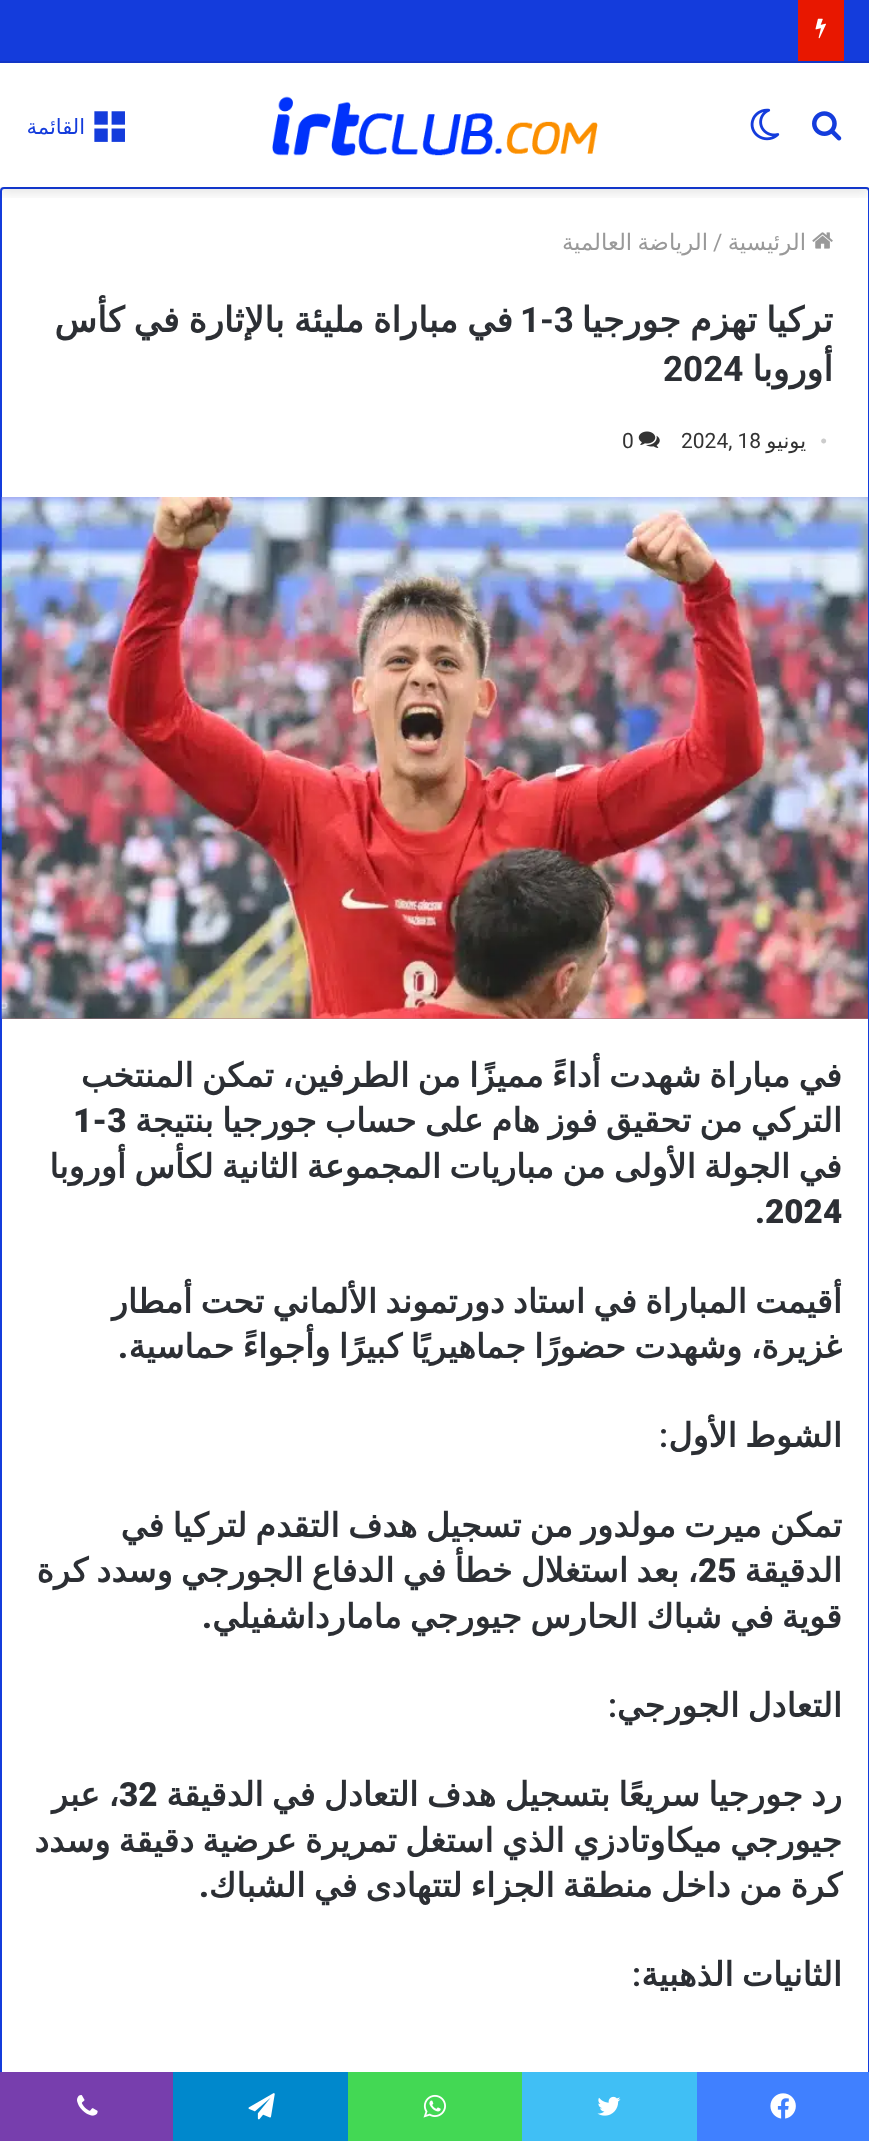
<svg xmlns="http://www.w3.org/2000/svg" width="869" height="2141" viewBox="0 0 869 2141">
  <defs>
    <clipPath id="clip1"><rect x="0" y="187" width="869" height="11"/></clipPath>
    <filter id="blur1" x="-50%" y="-200%" width="200%" height="500%"><feGaussianBlur stdDeviation="6"/></filter>
  </defs>
  <rect width="100%" height="100%" fill="#ffffff"/>
  <rect x="1" y="188" width="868" height="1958" rx="3" fill="none" stroke="#143cdc" stroke-width="2"/>
  <g clip-path="url(#clip1)">
    <rect x="0" y="68" width="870" height="125" fill="#000000" fill-opacity="0.1" filter="url(#blur1)"/>
  </g>
  <rect x="0" y="0" width="869" height="61" fill="#143cdc"/>
  <rect x="0" y="61" width="869" height="2" fill="#1236c6"/>
  <rect x="798" y="0" width="46" height="61" fill="#e81700"/>
  <image x="815" y="18" width="11" height="21" href="img1.png"/>
  <image x="812" y="111" width="30" height="30" href="img2.png"/>
  <image x="750" y="108" width="30" height="33" href="img3.png"/>
  <image x="272" y="96" width="326" height="60" href="img4.png"/>
  <image x="94" y="111" width="31" height="31" href="img5.png"/>
  <text x="85" y="134" font-family="DejaVu Sans" font-size="21" direction="rtl" fill="#143cdc">القائمة</text>
  <image x="812" y="232" width="21" height="17" href="img6.png"/>
  <text x="806" y="250" font-family="DejaVu Sans" font-size="22.75" direction="rtl" fill="#999999">الرئيسية</text>
  <text x="713" y="250" font-family="Roboto" font-size="22.75" fill="#999999">/</text>
  <text x="708" y="250" word-spacing="-2" font-family="DejaVu Sans" font-size="22.75" direction="rtl" fill="#999999">الرياضة العالمية</text>
  <text x="833" y="332" word-spacing="-2" font-family="DejaVu Sans" font-size="35" font-weight="bold" direction="rtl" fill="#2c2f34">تركيا تهزم جورجيا</text>
  <text x="520" y="332" font-family="Roboto" font-size="35" font-weight="bold" fill="#2c2f34">1-3</text>
  <text x="513" y="332" word-spacing="-2" font-family="DejaVu Sans" font-size="35" font-weight="bold" direction="rtl" fill="#2c2f34">في مباراة مليئة بالإثارة في كأس</text>
  <text x="833" y="381" font-family="DejaVu Sans" font-size="35" font-weight="bold" direction="rtl" fill="#2c2f34">أوروبا</text>
  <text x="663" y="381" font-family="Roboto" font-size="35" font-weight="bold" fill="#2c2f34">2024</text>
  <text x="820" y="448" font-family="Liberation Serif" font-size="21" fill="#cccccc">•</text>
  <text x="806" y="448" font-family="DejaVu Sans" font-size="21" direction="rtl" fill="#333333">يونيو</text>
  <text x="681" y="448" font-family="Roboto" font-size="21" fill="#333333">2024, 18</text>
  <image x="638" y="431" width="22" height="17" href="img7.png"/>
  <text x="622" y="448" font-family="Roboto" font-size="21" fill="#333333">0</text>
  <rect x="2" y="1018" width="866" height="1" fill="#a7767f"/>
  <image x="1" y="497" width="867" height="522" href="img8.png"/>
  <text x="842" y="1087" word-spacing="-2.25" font-family="DejaVu Sans" font-size="33.25" font-weight="bold" direction="rtl" fill="#2c2f34">في مباراة شهدت أداءً مميزًا من الطرفين، تمكن المنتخب</text>
  <text x="842" y="1132" word-spacing="-2.25" font-family="DejaVu Sans" font-size="33.25" font-weight="bold" direction="rtl" fill="#2c2f34">التركي من تحقيق فوز هام على حساب جورجيا بنتيجة</text>
  <text x="73" y="1132" font-family="Roboto" font-size="33.25" font-weight="900" fill="#2c2f34">1-3</text>
  <text x="842" y="1178" word-spacing="-2.25" font-family="DejaVu Sans" font-size="33.25" font-weight="bold" direction="rtl" fill="#2c2f34">في الجولة الأولى من مباريات المجموعة الثانية لكأس أوروبا</text>
  <text x="755" y="1223" font-family="Roboto" font-size="33.25" font-weight="900" fill="#2c2f34">.2024</text>
  <text x="842" y="1313" word-spacing="-2.25" font-family="DejaVu Sans" font-size="33.25" font-weight="bold" direction="rtl" fill="#2c2f34">أقيمت المباراة في استاد دورتموند الألماني تحت أمطار</text>
  <text x="842" y="1358" word-spacing="-2.25" font-family="DejaVu Sans" font-size="33.25" font-weight="bold" direction="rtl" fill="#2c2f34">غزيرة، وشهدت حضورًا جماهيريًا كبيرًا وأجواءً حماسية</text>
  <text x="128" y="1358" font-family="Roboto" font-size="33.25" font-weight="900" direction="rtl" fill="#2c2f34">.</text>
  <text x="842" y="1447" word-spacing="-2.25" font-family="DejaVu Sans" font-size="33.25" font-weight="bold" direction="rtl" fill="#2c2f34">الشوط الأول</text>
  <text x="668" y="1447" font-family="Roboto" font-size="33.25" font-weight="600" direction="rtl" fill="#2c2f34">:</text>
  <text x="842" y="1537" word-spacing="-2.25" font-family="DejaVu Sans" font-size="33.25" font-weight="bold" direction="rtl" fill="#2c2f34">تمكن ميرت مولدور من تسجيل هدف التقدم لتركيا في</text>
  <text x="842" y="1582" font-family="DejaVu Sans" font-size="33.25" font-weight="bold" direction="rtl" fill="#2c2f34">الدقيقة</text>
  <text x="698" y="1582" word-spacing="-2.25" font-family="DejaVu Sans" font-size="33.25" font-weight="bold" direction="rtl" fill="#2c2f34">، بعد استغلال خطأ في الدفاع الجورجي وسدد كرة</text>
  <text x="698" y="1582" font-family="Roboto" font-size="33.25" font-weight="900" fill="#2c2f34">25</text>
  <text x="842" y="1628" word-spacing="-2.25" font-family="DejaVu Sans" font-size="33.25" font-weight="bold" direction="rtl" fill="#2c2f34">قوية في شباك الحارس جيورجي مامارداشفيلي</text>
  <text x="212" y="1628" font-family="Roboto" font-size="33.25" font-weight="900" direction="rtl" fill="#2c2f34">.</text>
  <text x="842" y="1717" word-spacing="-2.25" font-family="DejaVu Sans" font-size="33.25" font-weight="bold" direction="rtl" fill="#2c2f34">التعادل الجورجي</text>
  <text x="617" y="1717" font-family="Roboto" font-size="33.25" font-weight="600" direction="rtl" fill="#2c2f34">:</text>
  <text x="842" y="1806" word-spacing="-2.25" font-family="DejaVu Sans" font-size="33.25" font-weight="bold" direction="rtl" fill="#2c2f34">رد جورجيا سريعًا بتسجيل هدف التعادل في الدقيقة</text>
  <text x="119" y="1806" font-family="Roboto" font-size="33.25" font-weight="900" fill="#2c2f34">32</text>
  <text x="119" y="1806" word-spacing="-2.25" font-family="DejaVu Sans" font-size="33.25" font-weight="bold" direction="rtl" fill="#2c2f34">، عبر</text>
  <text x="842" y="1852" word-spacing="-2.25" font-family="DejaVu Sans" font-size="33.25" font-weight="bold" direction="rtl" fill="#2c2f34">جيورجي ميكاوتادزي الذي استغل تمريرة عرضية دقيقة وسدد</text>
  <text x="842" y="1897" word-spacing="-2.25" font-family="DejaVu Sans" font-size="33.25" font-weight="bold" direction="rtl" fill="#2c2f34">كرة من داخل منطقة الجزاء لتتهادى في الشباك</text>
  <text x="209" y="1897" font-family="Roboto" font-size="33.25" font-weight="900" direction="rtl" fill="#2c2f34">.</text>
  <text x="842" y="1986" word-spacing="-2.25" font-family="DejaVu Sans" font-size="33.25" font-weight="bold" direction="rtl" fill="#2c2f34">الثانيات الذهبية</text>
  <text x="641" y="1986" font-family="Roboto" font-size="33.25" font-weight="600" direction="rtl" fill="#2c2f34">:</text>
  <rect x="697" y="2072" width="172" height="69" fill="#4080ff"/>
  <image x="770" y="2093" width="26" height="26" href="img9.png"/>
  <rect x="522" y="2072" width="175" height="69" fill="#40bff5"/>
  <image x="597" y="2096" width="24" height="20" href="img10.png"/>
  <rect x="348" y="2072" width="174" height="69" fill="#43d854"/>
  <image x="423" y="2094" width="23" height="24" href="img11.png"/>
  <rect x="173" y="2072" width="175" height="69" fill="#0088cc"/>
  <image x="248" y="2093" width="27" height="27" href="img12.png"/>
  <rect x="0" y="2072" width="173" height="69" fill="#773ead"/>
  <image x="77" y="2095" width="21" height="21" href="img13.png"/>
</svg>
